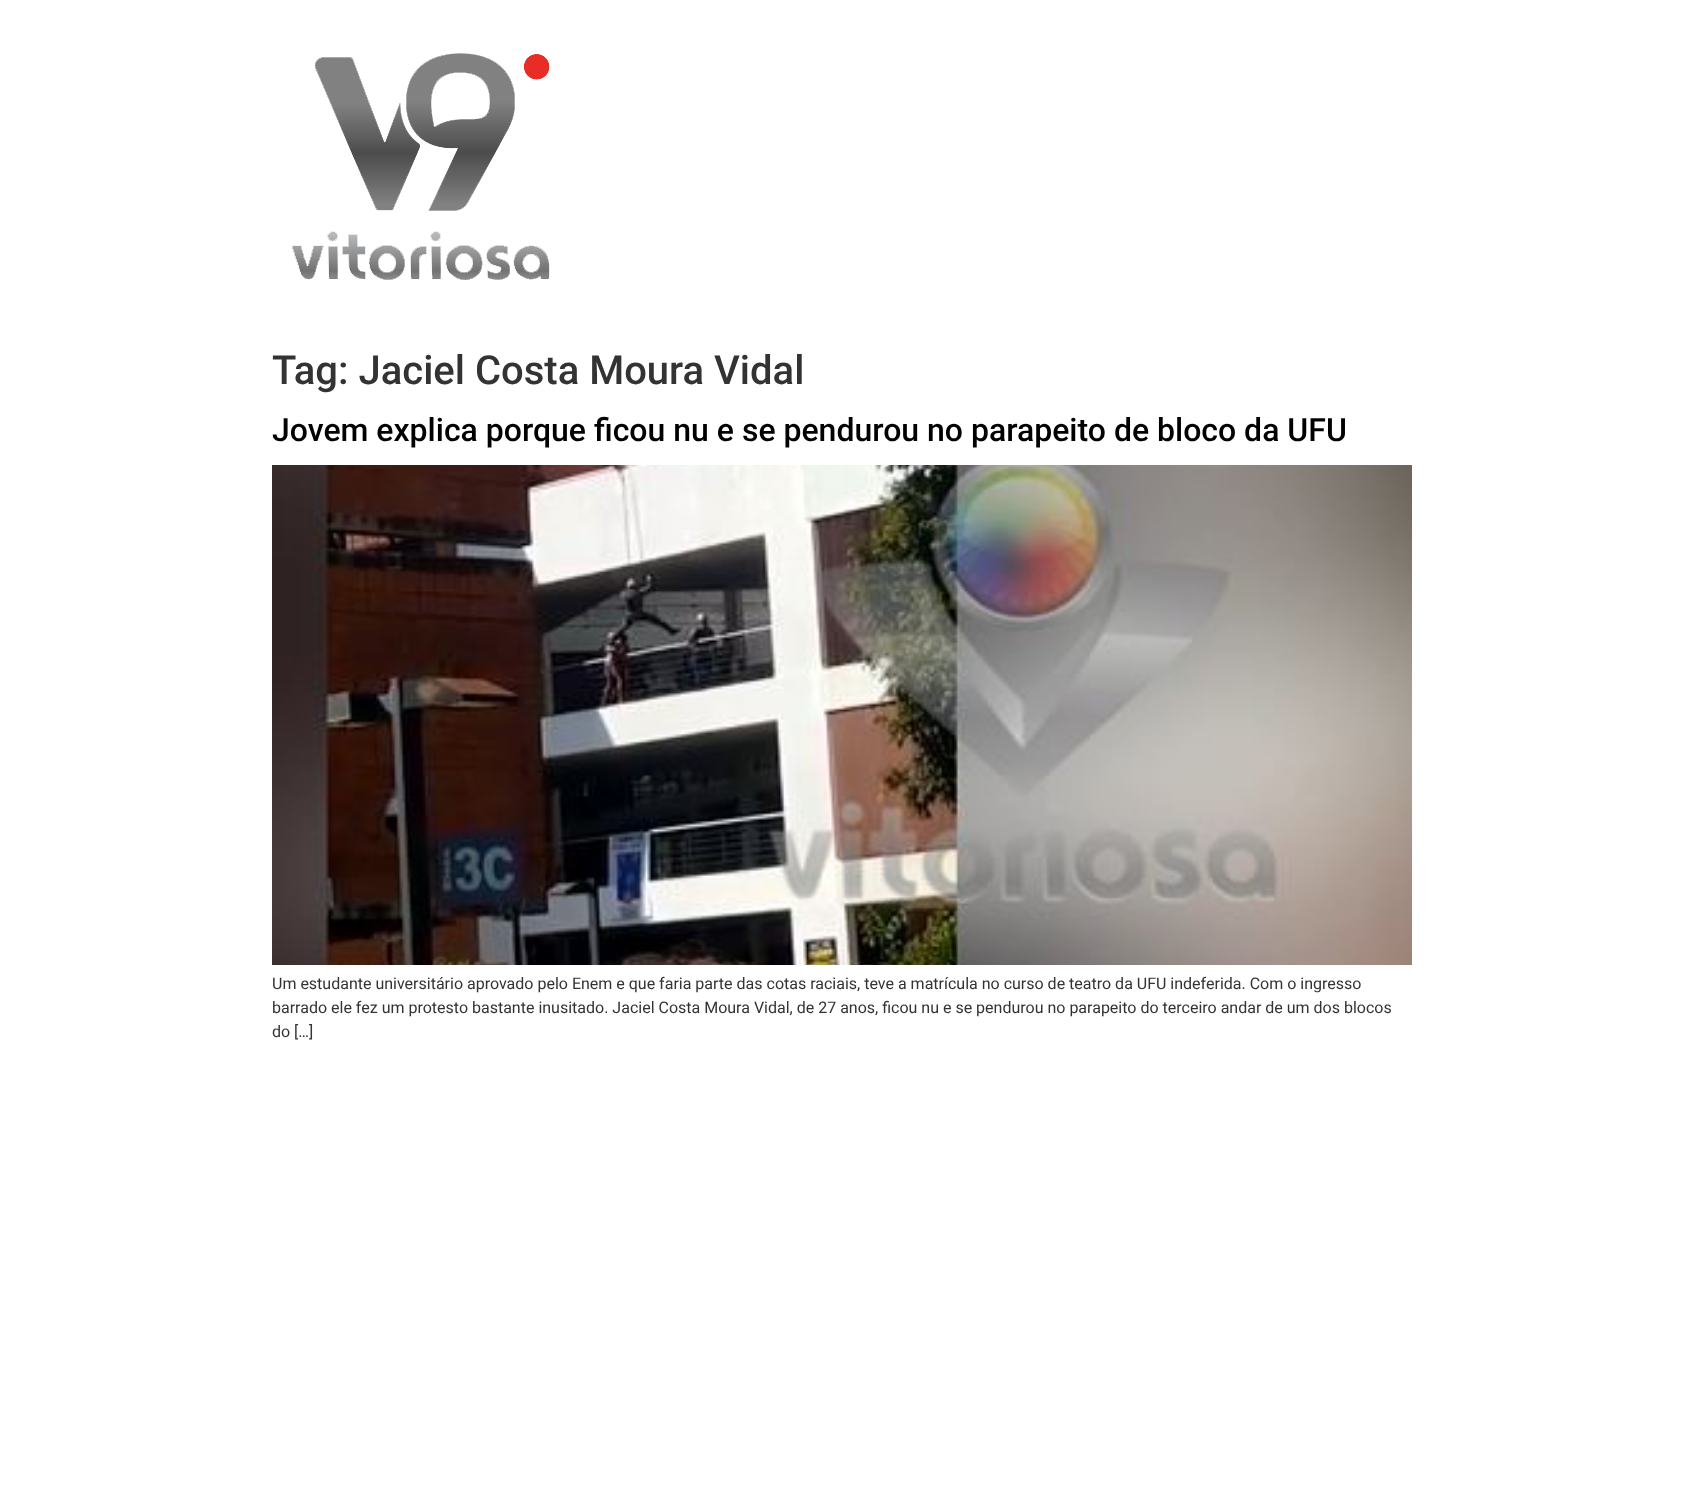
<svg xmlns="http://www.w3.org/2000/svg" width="1683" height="1504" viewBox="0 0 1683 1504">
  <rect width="100%" height="100%" fill="#ffffff"/>
  <image x="291" y="53" width="259" height="227" href="img1.png"/>
  <text x="272" y="384" font-family="Roboto" font-size="40" font-weight="500" fill="#333333">Tag: Jaciel Costa Moura Vidal</text>
  <text x="272" y="441" font-family="Roboto" font-size="32" font-weight="500" fill="#000000">Jovem explica porque ficou nu e se pendurou no parapeito de bloco da UFU</text>
  <image x="272" y="465" width="1140" height="500" href="img2.png"/>
  <text x="272" y="989" font-family="Roboto" font-size="16" fill="#333333">Um estudante universitário aprovado pelo Enem e que faria parte das cotas raciais, teve a matrícula no curso de teatro da UFU indeferida. Com o ingresso</text>
  <text x="272" y="1013" font-family="Roboto" font-size="16" fill="#333333">barrado ele fez um protesto bastante inusitado. Jaciel Costa Moura Vidal, de 27 anos, ficou nu e se pendurou no parapeito do terceiro andar de um dos blocos</text>
  <text x="272" y="1037" font-family="Roboto" font-size="16" fill="#333333">do […]</text>
</svg>
